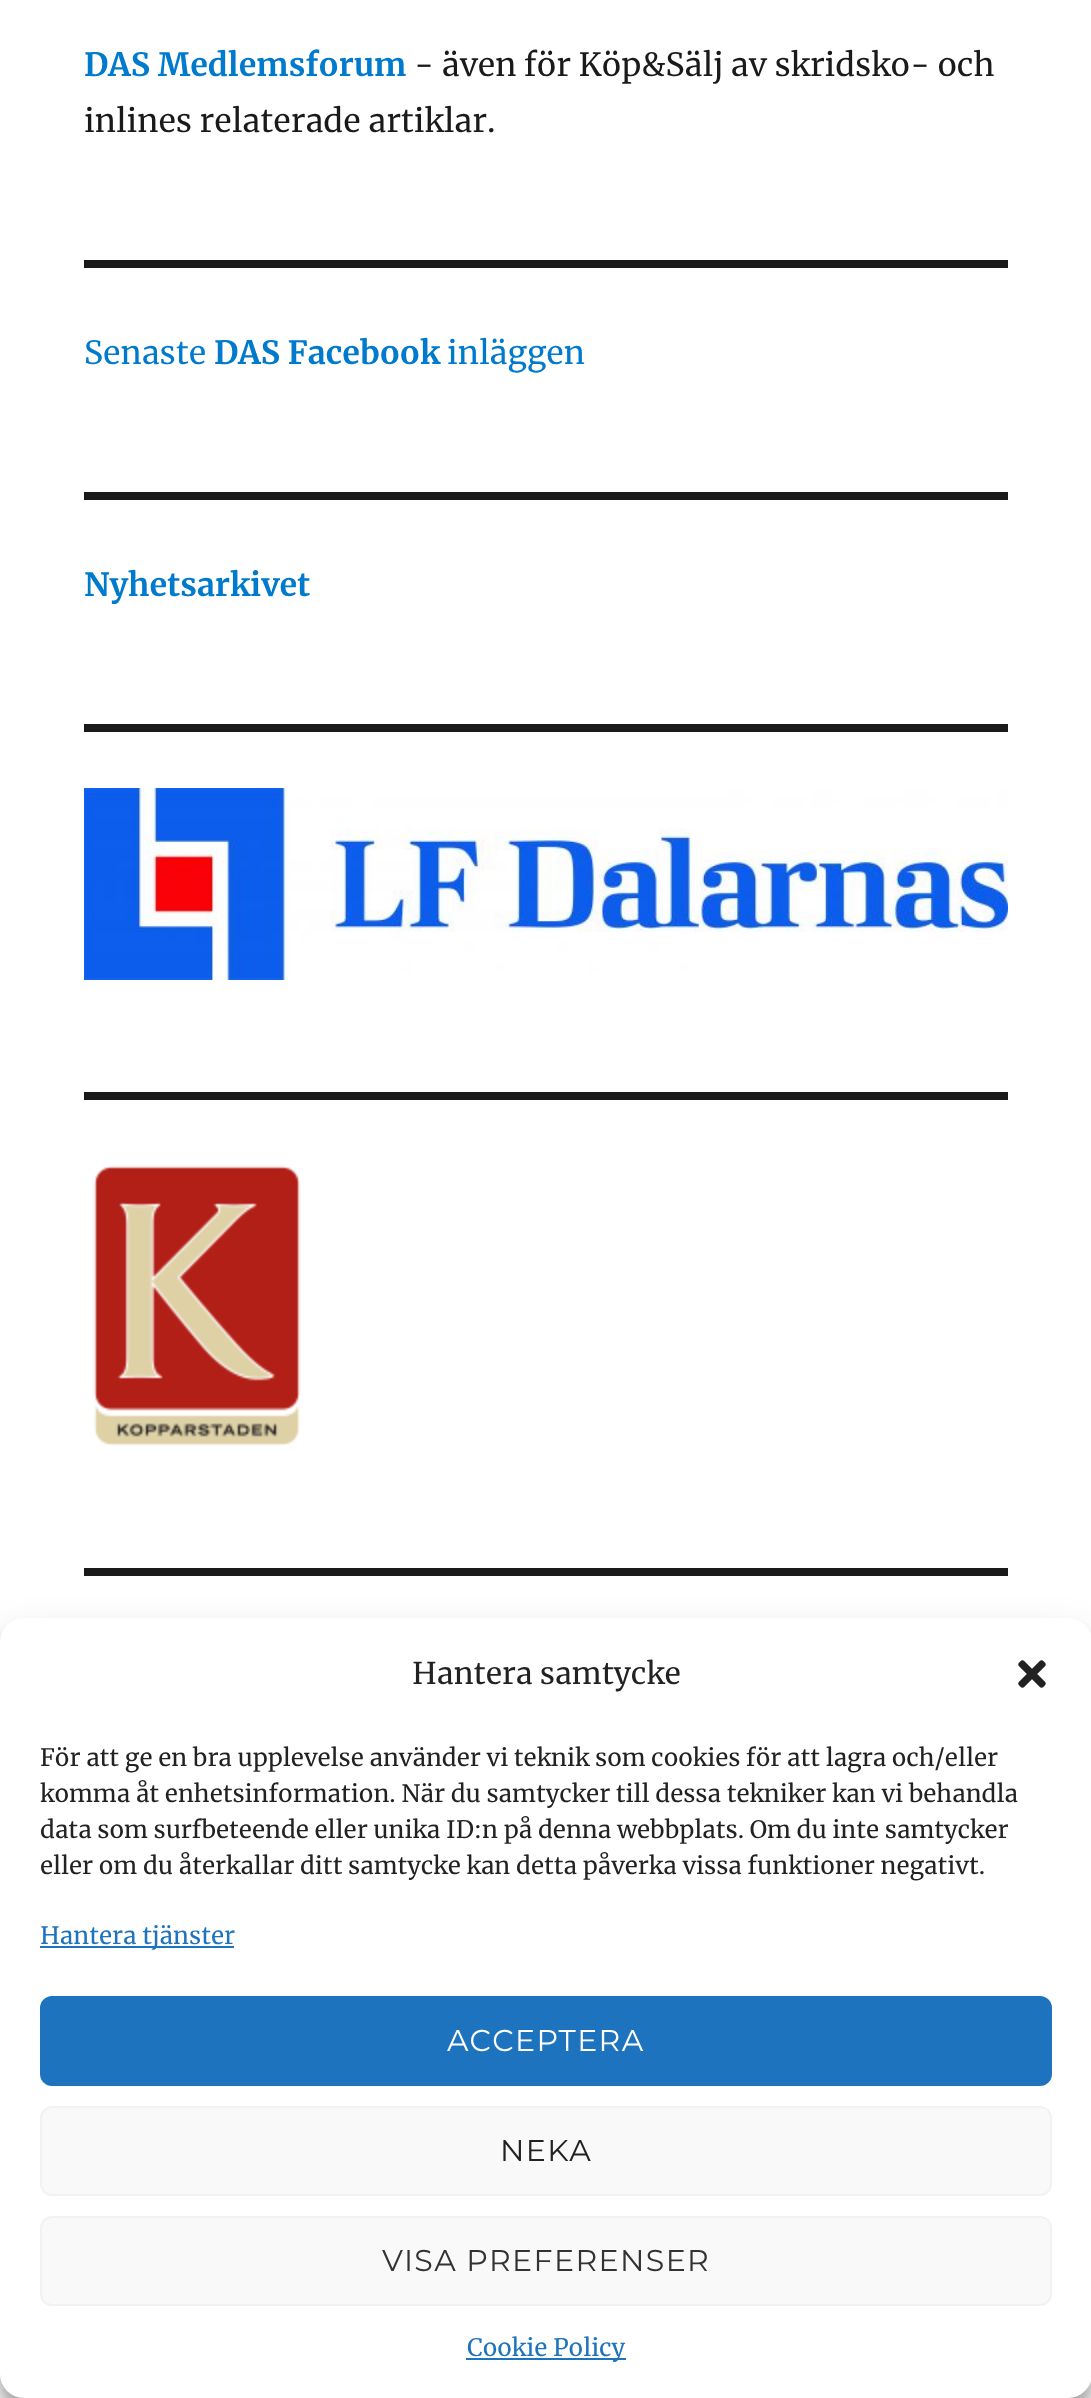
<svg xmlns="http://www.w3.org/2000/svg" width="1091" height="2398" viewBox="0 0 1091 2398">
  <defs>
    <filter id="blur1" x="-50%" y="-200%" width="200%" height="500%"><feGaussianBlur stdDeviation="6"/></filter>
    <filter id="blur2" x="-50%" y="-200%" width="200%" height="500%"><feGaussianBlur stdDeviation="20"/></filter>
  </defs>
  <rect width="100%" height="100%" fill="#ffffff"/>
  <text x="84" y="76" font-family="Merriweather" font-size="32" font-weight="bold" fill="#007acc">DAS Medlemsforum</text>
  <text x="414" y="76" font-family="Merriweather" font-size="32" fill="#1a1a1a">- även för Köp&amp;Sälj av skridsko- och</text>
  <text x="84" y="132" font-family="Merriweather" font-size="32" fill="#1a1a1a">inlines relaterade artiklar.</text>
  <rect x="84" y="260" width="924" height="8" fill="#1a1a1a"/>
  <text x="84" y="364" font-family="Merriweather" font-size="32" fill="#007acc">Senaste</text>
  <text x="214" y="364" font-family="Merriweather" font-size="32" font-weight="bold" fill="#007acc">DAS Facebook</text>
  <text x="447" y="364" font-family="Merriweather" font-size="32" fill="#007acc">inläggen</text>
  <rect x="84" y="492" width="924" height="8" fill="#1a1a1a"/>
  <text x="84" y="596" font-family="Merriweather" font-size="32" font-weight="bold" fill="#007acc">Nyhetsarkivet</text>
  <rect x="84" y="724" width="924" height="8" fill="#1a1a1a"/>
  <image x="84" y="788" width="924" height="192" href="img1.png"/>
  <rect x="84" y="1092" width="924" height="8" fill="#1a1a1a"/>
  <image x="93" y="1165" width="208" height="281" href="img2.png"/>
  <rect x="84" y="1568" width="924" height="8" fill="#1a1a1a"/>
  <rect x="0" y="1630" width="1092" height="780" rx="24" fill="#000000" fill-opacity="0.23" filter="url(#blur1)"/>
  <rect x="0" y="1638" width="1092" height="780" rx="24" fill="#000000" fill-opacity="0.19" filter="url(#blur2)"/>
  <rect x="0" y="1618" width="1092" height="780" rx="24" fill="#ffffff"/>
  <text x="412" y="1684" font-family="Merriweather" font-size="30" fill="#222222">Hantera samtycke</text>
  <image x="1018" y="1660" width="28" height="28" href="img3.png"/>
  <text x="40" y="1766" font-family="Merriweather" font-size="24" fill="#222222">För att ge en bra upplevelse använder vi teknik som cookies för att lagra och/eller</text>
  <text x="40" y="1802" font-family="Merriweather" font-size="24" fill="#222222">komma åt enhetsinformation. När du samtycker till dessa tekniker kan vi behandla</text>
  <text x="40" y="1838" font-family="Merriweather" font-size="24" fill="#222222">data som surfbeteende eller unika ID:n på denna webbplats. Om du inte samtycker</text>
  <text x="40" y="1874" font-family="Merriweather" font-size="24" fill="#222222">eller om du återkallar ditt samtycke kan detta påverka vissa funktioner negativt.</text>
  <rect x="40" y="1946" width="194" height="2" fill="#1e73be"/>
  <text x="40" y="1944" font-family="Merriweather" font-size="24" fill="#1e73be">Hantera tjänster</text>
  <rect x="41" y="1997" width="1010" height="88" rx="11" fill="#1e73be" stroke="#1e73be" stroke-width="2"/>
  <text x="447" y="2051" font-family="Montserrat" font-size="30" font-weight="100" letter-spacing="1.4" fill="#ffffff">ACCEPTERA</text>
  <rect x="41" y="2107" width="1010" height="88" rx="11" fill="#f9f9f9" stroke="#f2f2f2" stroke-width="2"/>
  <text x="500" y="2161" font-family="Montserrat" font-size="30" font-weight="100" letter-spacing="1.4" fill="#222222">NEKA</text>
  <rect x="41" y="2217" width="1010" height="88" rx="11" fill="#f9f9f9" stroke="#f2f2f2" stroke-width="2"/>
  <text x="382" y="2271" font-family="Montserrat" font-size="30" font-weight="100" letter-spacing="1.4" fill="#333333">VISA PREFERENSER</text>
  <rect x="466" y="2358" width="160" height="2" fill="#1e73be"/>
  <text x="467" y="2356" font-family="Merriweather" font-size="24" fill="#1e73be">Cookie Policy</text>
</svg>
